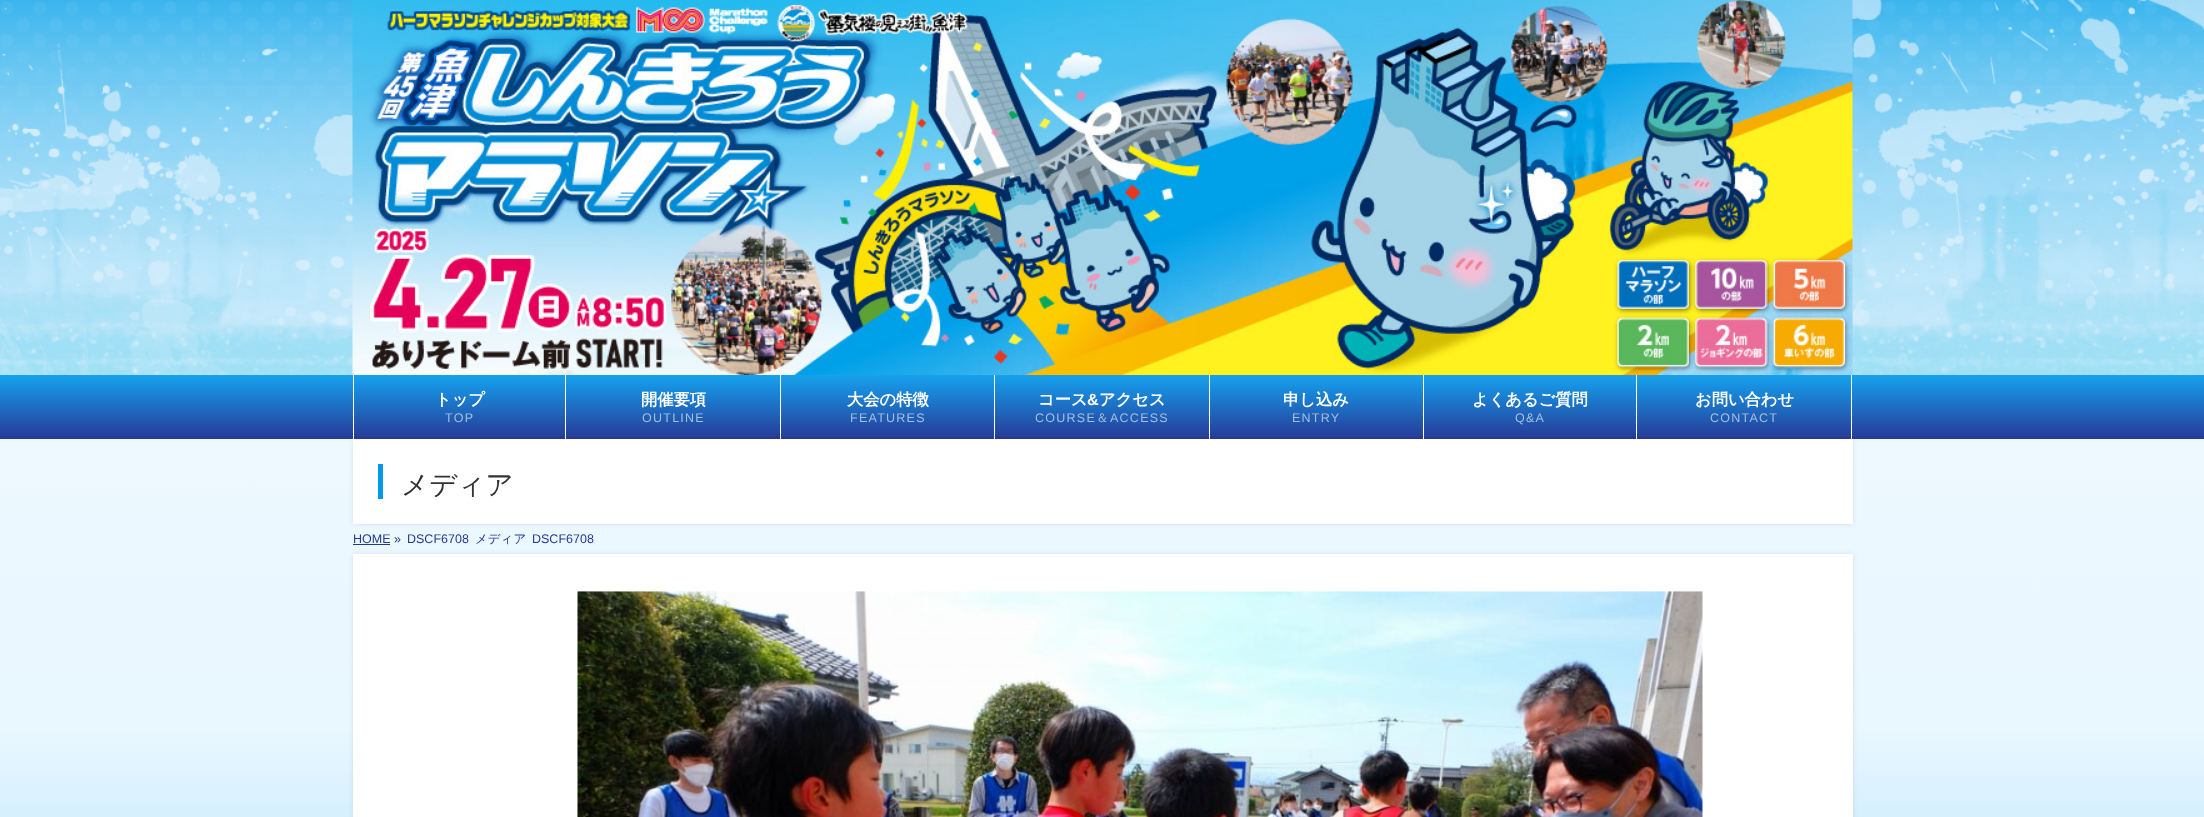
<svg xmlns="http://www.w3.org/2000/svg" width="2204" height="817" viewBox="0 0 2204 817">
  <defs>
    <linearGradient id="g1" gradientUnits="userSpaceOnUse" x1="1102" y1="0" x2="1103" y2="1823"><stop offset="0" stop-color="#f4fbff"/><stop offset="0.4" stop-color="#e9f7ff"/><stop offset="1" stop-color="#009df3"/></linearGradient>
    <linearGradient id="g2" gradientUnits="userSpaceOnUse" x1="1103" y1="375" x2="1103" y2="439"><stop offset="0" stop-color="#15a2ee"/><stop offset="1" stop-color="#263a97"/></linearGradient>
    <filter id="blur1" x="-50%" y="-200%" width="200%" height="500%"><feGaussianBlur stdDeviation="2.5"/></filter>
  </defs>
  <rect width="100%" height="100%" fill="#ffffff"/>
  <rect x="0" y="0" width="2204" height="817" fill="url(#g1)"/>
  <image x="0" y="0" width="2204" height="375" href="img1.png"/>
  <image x="352" y="0" width="1501" height="375" href="img2.png"/>
  <rect x="0" y="375" width="2204" height="64" fill="url(#g2)"/>
  <rect x="565" y="375" width="1" height="64" fill="#ffffff"/>
  <rect x="353" y="375" width="1" height="64" fill="#ffffff"/>
  <text x="435" y="405" font-family="WenQuanYi Zen Hei" font-size="16.25" font-weight="bold" fill="#ffffff">トップ</text>
  <text x="445" y="422" font-family="Liberation Sans" font-size="12.5" letter-spacing="1.25" fill="#a6bfe1">TOP</text>
  <rect x="780" y="375" width="1" height="64" fill="#ffffff"/>
  <text x="641" y="405" font-family="WenQuanYi Zen Hei" font-size="16.25" font-weight="bold" fill="#ffffff">開催要項</text>
  <text x="642" y="422" font-family="Liberation Sans" font-size="12.5" letter-spacing="1.25" fill="#a6bfe1">OUTLINE</text>
  <rect x="994" y="375" width="1" height="64" fill="#ffffff"/>
  <text x="847" y="405" font-family="WenQuanYi Zen Hei" font-size="16.25" font-weight="bold" fill="#ffffff">大会の特徴</text>
  <text x="850" y="422" font-family="Liberation Sans" font-size="12.5" letter-spacing="1.25" fill="#a6bfe1">FEATURES</text>
  <rect x="1209" y="375" width="1" height="64" fill="#ffffff"/>
  <text x="1038" y="405" font-family="WenQuanYi Zen Hei" font-size="16.25" font-weight="bold" fill="#ffffff">コース</text>
  <text x="1087" y="405" font-family="Liberation Sans" font-size="16.25" font-weight="bold" fill="#ffffff">&amp;</text>
  <text x="1099" y="405" font-family="WenQuanYi Zen Hei" font-size="16.25" font-weight="bold" fill="#ffffff">アクセス</text>
  <text x="1035" y="422" font-family="Liberation Sans" font-size="12.5" letter-spacing="1.25" fill="#a6bfe1">COURSE</text>
  <text x="1096" y="422" font-family="WenQuanYi Zen Hei" font-size="12.5" font-weight="500" letter-spacing="1.25" fill="#a6bfe1">＆</text>
  <text x="1110" y="422" font-family="Liberation Sans" font-size="12.5" letter-spacing="1.25" fill="#a6bfe1">ACCESS</text>
  <rect x="1423" y="375" width="1" height="64" fill="#ffffff"/>
  <text x="1283" y="405" font-family="WenQuanYi Zen Hei" font-size="16.25" font-weight="bold" fill="#ffffff">申し込み</text>
  <text x="1292" y="422" font-family="Liberation Sans" font-size="12.5" letter-spacing="1.25" fill="#a6bfe1">ENTRY</text>
  <rect x="1636" y="375" width="1" height="64" fill="#ffffff"/>
  <text x="1472" y="405" font-family="WenQuanYi Zen Hei" font-size="16.25" font-weight="bold" fill="#ffffff">よくあるご質問</text>
  <text x="1515" y="422" font-family="Liberation Sans" font-size="12.5" letter-spacing="1.25" fill="#a6bfe1">Q&amp;A</text>
  <rect x="1851" y="375" width="1" height="64" fill="#ffffff"/>
  <text x="1695" y="405" font-family="WenQuanYi Zen Hei" font-size="16.25" font-weight="bold" fill="#ffffff">お問い合わせ</text>
  <text x="1710" y="422" font-family="Liberation Sans" font-size="12.5" letter-spacing="1.25" fill="#a6bfe1">CONTACT</text>
  <rect x="353" y="439" width="1500" height="85" fill="#000000" fill-opacity="0.1" filter="url(#blur1)"/>
  <rect x="353" y="439" width="1500" height="85" fill="#ffffff"/>
  <rect x="378" y="464" width="5" height="35" fill="#0098ed"/>
  <text x="401" y="494" font-family="WenQuanYi Zen Hei" font-size="27.5" font-weight="500" fill="#333333">メディア</text>
  <text x="353" y="543" font-family="Liberation Sans" font-size="12.5" fill="#243992">HOME »</text>
  <rect x="353" y="544" width="37" height="1" fill="#243992"/>
  <text x="407" y="543" font-family="Liberation Sans" font-size="12.5" fill="#243992">DSCF6708</text>
  <text x="475" y="543" font-family="WenQuanYi Zen Hei" font-size="12.5" font-weight="500" fill="#243992">メディア</text>
  <text x="532" y="543" font-family="Liberation Sans" font-size="12.5" fill="#243992">DSCF6708</text>
  <rect x="353" y="554" width="1500" height="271" fill="#000000" fill-opacity="0.1" filter="url(#blur1)"/>
  <rect x="353" y="554" width="1500" height="263" fill="#ffffff"/>
  <image x="577" y="591" width="1126" height="226" href="img3.png"/>
</svg>
